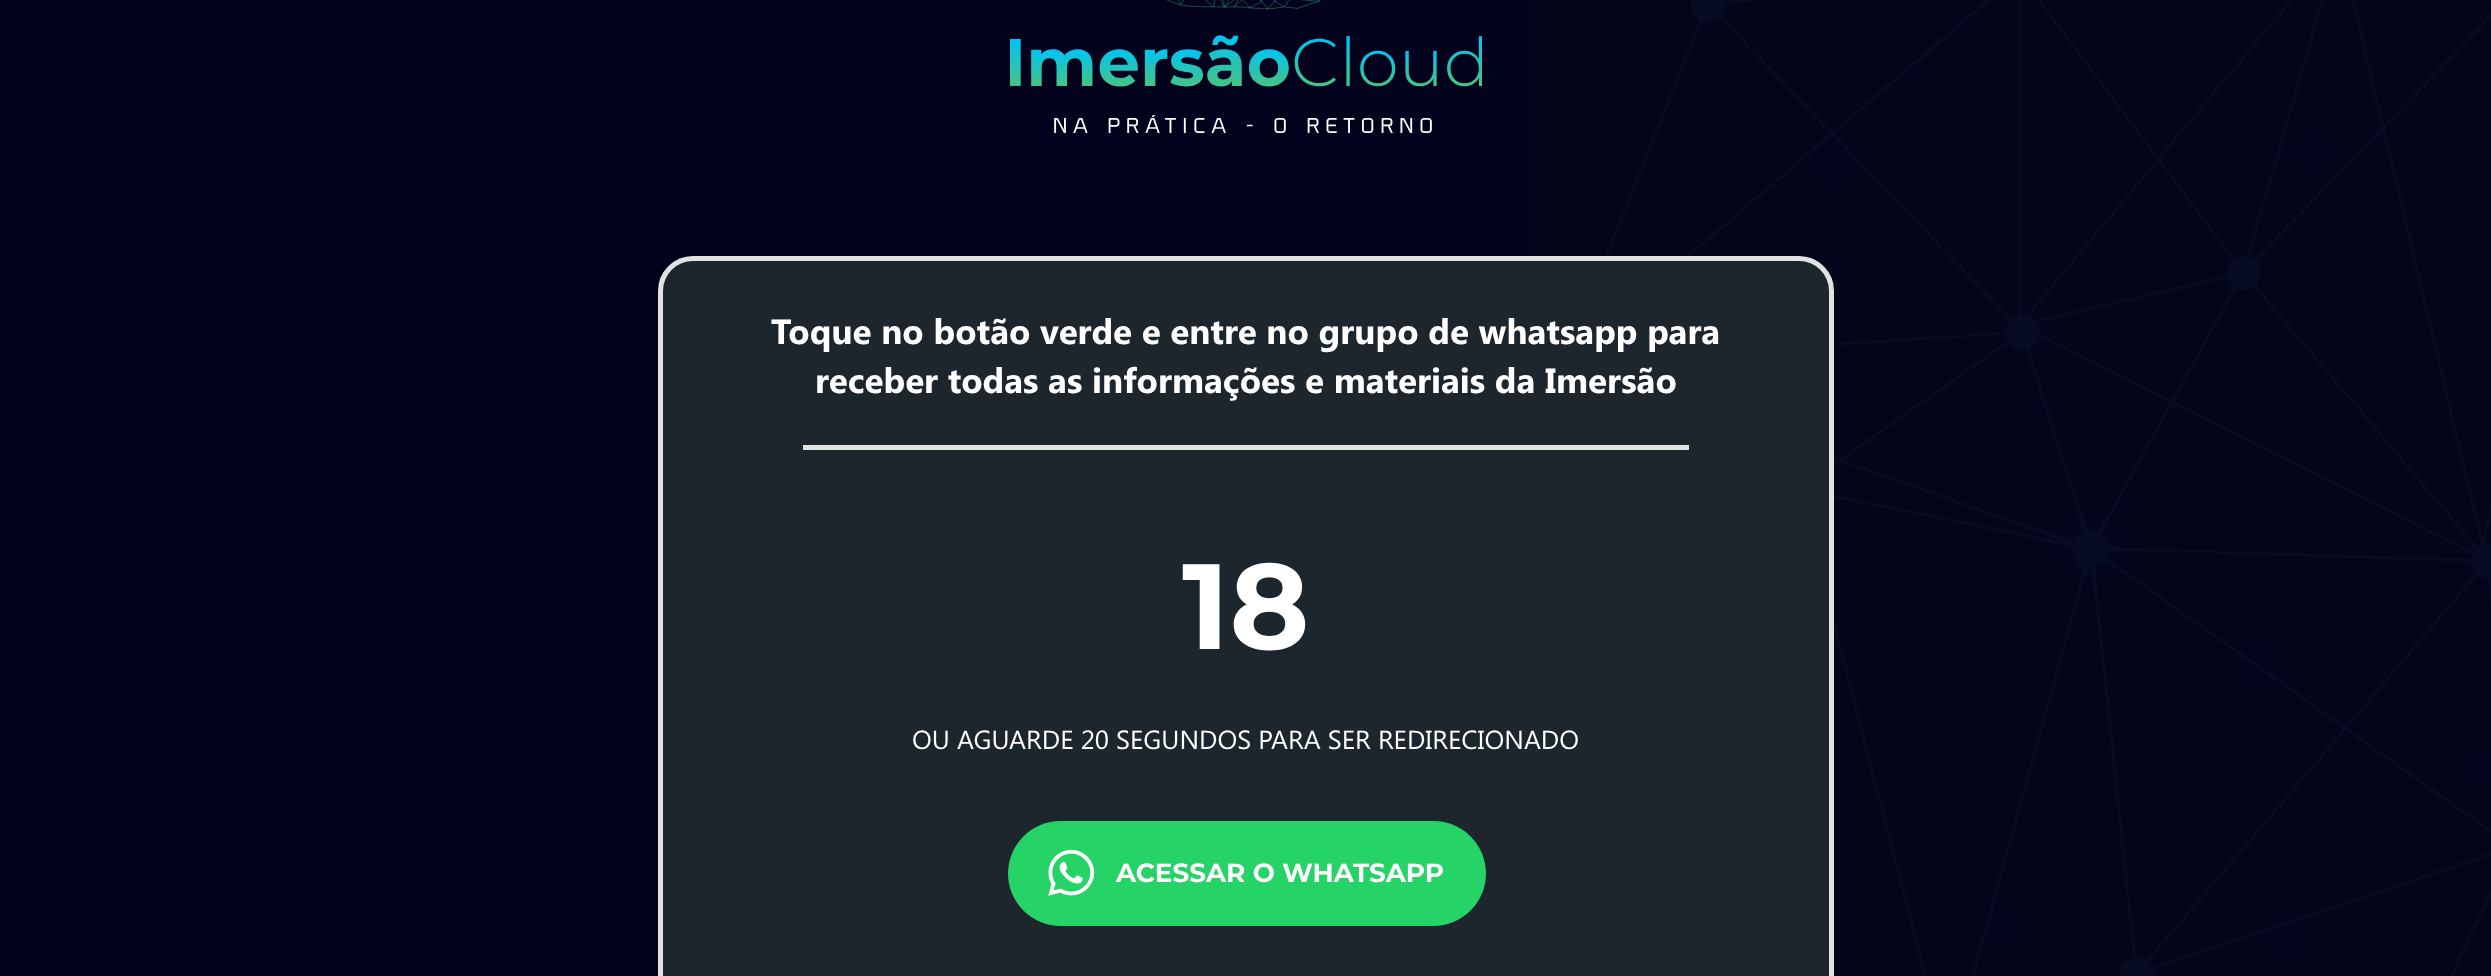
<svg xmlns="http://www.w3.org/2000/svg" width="2491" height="976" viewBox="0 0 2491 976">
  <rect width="100%" height="100%" fill="#02021d"/>
  <image x="1010" y="0" width="472" height="133" href="img1.png"/>
  <image x="1532" y="0" width="959" height="976" href="img3.png"/>
  <rect x="660.5" y="258.5" width="1171" height="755" rx="32.5" fill="#1d252d" stroke="#e1e2e2" stroke-width="5"/>
  <text x="771" y="344" font-family="Segoe UI" font-size="35" font-weight="bold" fill="#ffffff">Toque no botão verde e entre no grupo de whatsapp para</text>
  <text x="815" y="393" font-family="Segoe UI" font-size="35" font-weight="bold" fill="#ffffff">receber todas as informações e materiais da Imersão</text>
  <rect x="803" y="445" width="886" height="5" fill="#e1e2e2"/>
  <text x="1182" y="649" font-family="Montserrat" font-size="121" font-weight="bold" fill="#ffffff">18</text>
  <text x="912" y="749" font-family="Segoe UI" font-size="26.25" fill="#ffffff">OU AGUARDE 20 SEGUNDOS PARA SER REDIRECIONADO</text>
  <rect x="1008" y="821" width="478" height="105" rx="52.5" fill="#25d366"/>
  <image x="1048" y="849" width="47" height="47" href="img2.png"/>
  <text x="1116" y="882" font-family="Montserrat" font-size="26.25" font-weight="bold" fill="#ffffff">ACESSAR O WHATSAPP</text>
</svg>
